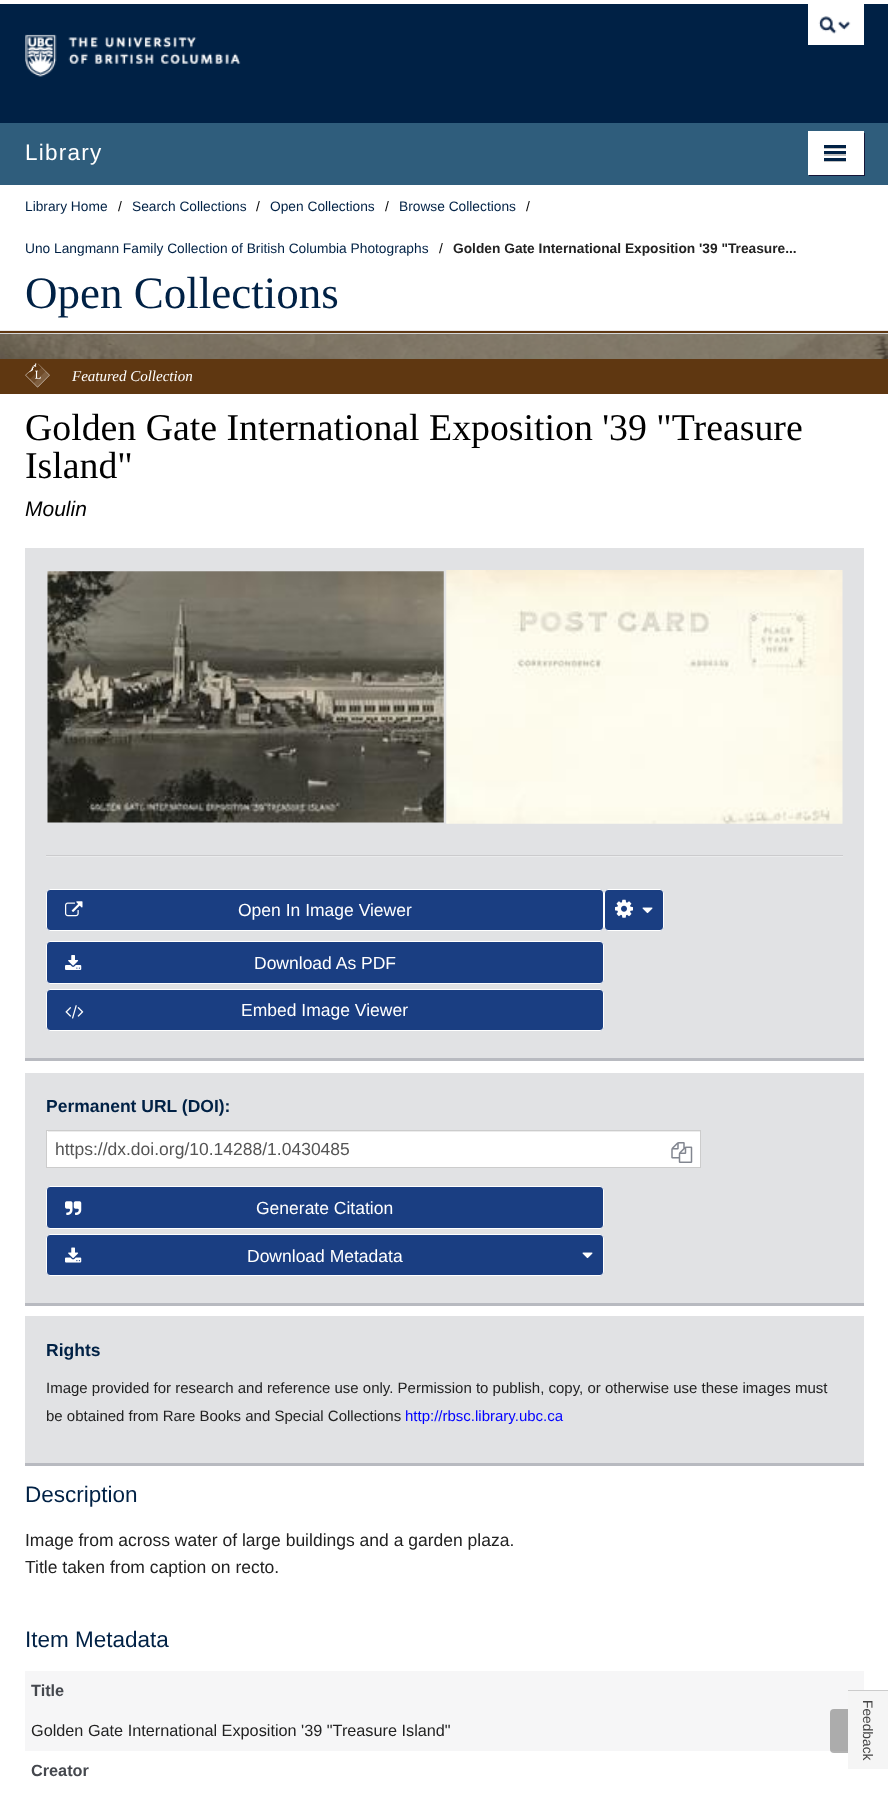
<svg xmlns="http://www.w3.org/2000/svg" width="888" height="1794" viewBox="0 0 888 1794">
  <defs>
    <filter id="blur1" x="-50%" y="-200%" width="200%" height="500%"><feGaussianBlur stdDeviation="0.5"/></filter>
  </defs>
  <rect width="100%" height="100%" fill="#ffffff"/>
  <rect x="0" y="4" width="888" height="119" fill="#002145"/>
  <image x="25" y="34" width="216" height="43" href="img1.png"/>
  <rect x="808" y="4" width="56" height="41" fill="#ffffff"/>
  <image x="818" y="16" width="33" height="18" href="img2.png"/>
  <rect x="0" y="123" width="888" height="62" fill="#2f5d7c"/>
  <text x="25" y="160" font-family="Liberation Sans" font-size="22.5" letter-spacing="1.25" fill="#ffffff">Library</text>
  <rect x="809" y="133" width="56" height="43" fill="#191938" filter="url(#blur1)"/>
  <rect x="808" y="131" width="56" height="44" fill="#ffffff"/>
  <rect x="824" y="148" width="22" height="1" fill="#bfbfbf"/>
  <rect x="824" y="145" width="22" height="3" fill="#002145"/>
  <rect x="824" y="154" width="22" height="2" fill="#bfbfbf"/>
  <rect x="824" y="151" width="22" height="3" fill="#002145"/>
  <rect x="824" y="161" width="22" height="1" fill="#bfbfbf"/>
  <rect x="824" y="158" width="22" height="3" fill="#002145"/>
  <text x="25" y="211" font-family="Liberation Sans" font-size="13.75" fill="#002145">Library Home</text>
  <text x="118" y="211" font-family="Liberation Sans" font-size="13.75" fill="#000000">/</text>
  <text x="132" y="211" font-family="Liberation Sans" font-size="13.75" fill="#002145">Search Collections</text>
  <text x="256" y="211" font-family="Liberation Sans" font-size="13.75" fill="#000000">/</text>
  <text x="270" y="211" font-family="Liberation Sans" font-size="13.75" fill="#002145">Open Collections</text>
  <text x="385" y="211" font-family="Liberation Sans" font-size="13.75" fill="#000000">/</text>
  <text x="399" y="211" font-family="Liberation Sans" font-size="13.75" fill="#002145">Browse Collections</text>
  <text x="526" y="211" font-family="Liberation Sans" font-size="13.75" fill="#000000">/</text>
  <text x="25" y="253" font-family="Liberation Sans" font-size="13.75" fill="#002145">Uno Langmann Family Collection of British Columbia Photographs</text>
  <text x="439" y="253" font-family="Liberation Sans" font-size="13.75" fill="#000000">/</text>
  <text x="453" y="253" font-family="Liberation Sans" font-size="13.75" font-weight="bold" fill="#222222">Golden Gate International Exposition '39 "Treasure...</text>
  <text x="25" y="308" font-family="Liberation Serif" font-size="45" fill="#002145">Open Collections</text>
  <rect x="0" y="331" width="888" height="2" fill="#5f3711"/>
  <rect x="0" y="330" width="888" height="1" fill="#e9e9eb"/>
  <rect x="0" y="333" width="888" height="1" fill="#d3d5d8"/>
  <image x="0" y="334" width="888" height="25" href="img3.png"/>
  <rect x="0" y="334" width="888" height="25" fill="#000000" fill-opacity="0.4"/>
  <rect x="0" y="359" width="888" height="35" fill="#5f3711"/>
  <image x="25" y="363" width="25" height="25" href="img4.png"/>
  <text x="72" y="381" font-family="Liberation Serif" font-size="15" font-style="italic" fill="#ffffff">Featured Collection</text>
  <text x="25" y="440" font-family="Liberation Serif" font-size="37.8" fill="#000000">Golden Gate International Exposition '39 "Treasure</text>
  <text x="25" y="478" font-family="Liberation Serif" font-size="37.8" fill="#000000">Island"</text>
  <text x="25" y="516" font-family="Liberation Sans" font-size="21" font-style="italic" fill="#000000">Moulin</text>
  <rect x="25" y="548" width="839" height="510" fill="#e1e2e4"/>
  <rect x="25" y="1058" width="839" height="3" fill="#b8bac0"/>
  <image x="47" y="571" width="397" height="252" href="img5.png"/>
  <image x="446" y="570" width="397" height="254" href="img6.png"/>
  <rect x="46" y="855" width="797" height="1" fill="#cbcbcd"/>
  <rect x="46" y="856" width="797" height="1" fill="#eaebec"/>
  <rect x="46.5" y="889.5" width="557" height="41" rx="3.5" fill="#1a3e82" stroke="#ffffff"/>
  <image x="65" y="901" width="18" height="16" href="img7.png"/>
  <text x="238" y="916" font-family="Liberation Sans" font-size="17.5" fill="#ffffff">Open In Image Viewer</text>
  <rect x="604.5" y="889.5" width="59" height="41" rx="3.5" fill="#1a3e82" stroke="#ffffff"/>
  <image x="615" y="899" width="18" height="19" href="img8.png"/>
  <image x="642" y="907" width="11" height="7" href="img9.png"/>
  <rect x="46.5" y="941.5" width="557" height="42" rx="3.5" fill="#1a3e82" stroke="#ffffff"/>
  <image x="65" y="955" width="17" height="15" href="img10.png"/>
  <text x="254" y="969" font-family="Liberation Sans" font-size="17.5" fill="#ffffff">Download As PDF</text>
  <rect x="46.5" y="989.5" width="557" height="41" rx="3.5" fill="#1a3e82" stroke="#ffffff"/>
  <image x="65" y="1005" width="19" height="14" href="img11.png"/>
  <text x="241" y="1016" font-family="Liberation Sans" font-size="17.5" fill="#ffffff">Embed Image Viewer</text>
  <rect x="25" y="1073" width="839" height="230" fill="#e1e2e4"/>
  <rect x="25" y="1303" width="839" height="3" fill="#b8bac0"/>
  <text x="46" y="1112" font-family="Liberation Sans" font-size="17.5" font-weight="bold" fill="#002145">Permanent URL (DOI):</text>
  <rect x="47" y="1131" width="653" height="36" fill="#ffffff"/>
  <rect x="48" y="1131" width="652" height="1" fill="#ececec"/>
  <rect x="46.5" y="1130.5" width="654" height="37" fill="none" stroke="#cccccc"/>
  <text x="55" y="1155" font-family="Liberation Sans" font-size="17.5" fill="#555555">https://dx.doi.org/10.14288/1.0430485</text>
  <image x="671" y="1142" width="22" height="21" href="img12.png"/>
  <rect x="46.5" y="1186.5" width="557" height="42" rx="3.5" fill="#1a3e82" stroke="#ffffff"/>
  <image x="65" y="1201" width="17" height="14" href="img13.png"/>
  <text x="256" y="1214" font-family="Liberation Sans" font-size="17.5" fill="#ffffff">Generate Citation</text>
  <rect x="46.5" y="1234.5" width="557" height="41" rx="3.5" fill="#1a3e82" stroke="#ffffff"/>
  <image x="65" y="1247" width="17" height="16" href="img14.png"/>
  <text x="247" y="1262" font-family="Liberation Sans" font-size="17.5" fill="#ffffff">Download Metadata</text>
  <image x="582" y="1252" width="11" height="7" href="img9.png"/>
  <rect x="25" y="1316" width="839" height="147" fill="#e1e2e4"/>
  <rect x="25" y="1463" width="839" height="3" fill="#b8bac0"/>
  <text x="46" y="1356" font-family="Liberation Sans" font-size="17.5" font-weight="bold" fill="#002145">Rights</text>
  <text x="46" y="1393" font-family="Liberation Sans" font-size="15" fill="#222222">Image provided for research and reference use only. Permission to publish, copy, or otherwise use these images must</text>
  <text x="46" y="1421" font-family="Liberation Sans" font-size="15" fill="#222222">be obtained from Rare Books and Special Collections</text>
  <text x="405" y="1421" font-family="Liberation Sans" font-size="15" fill="#0000ff">http://rbsc.library.ubc.ca</text>
  <text x="25" y="1502" font-family="Liberation Sans" font-size="22.5" fill="#002145">Description</text>
  <text x="25" y="1546" font-family="Liberation Sans" font-size="17.5" fill="#222222">Image from across water of large buildings and a garden plaza.</text>
  <text x="25" y="1573" font-family="Liberation Sans" font-size="17.5" fill="#222222">Title taken from caption on recto.</text>
  <text x="25" y="1647" font-family="Liberation Sans" font-size="22.5" fill="#002145">Item Metadata</text>
  <rect x="25" y="1671" width="839" height="80" fill="#f6f6f7"/>
  <text x="31" y="1696" font-family="Liberation Sans" font-size="16.25" font-weight="bold" fill="#45484e">Title</text>
  <text x="31" y="1736" font-family="Liberation Sans" font-size="16.25" fill="#222222">Golden Gate International Exposition '39 "Treasure Island"</text>
  <text x="31" y="1776" font-family="Liberation Sans" font-size="16.25" font-weight="bold" fill="#45484e">Creator</text>
  <rect x="830" y="1709" width="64" height="44" rx="4" fill="#000000" fill-opacity="0.3" filter="url(#blur1)"/>
  <path d="M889 1692V1769H848V1690H886C888 1690 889 1691 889 1692Z" fill="#f5f5f5"/>
  <rect x="848" y="1690" width="40" height="1" fill="#cccccc"/>
  <text x="863" y="1700" transform="rotate(90 863 1700)" font-family="Liberation Sans" font-size="13.75" fill="#444444">Feedback</text>
</svg>
